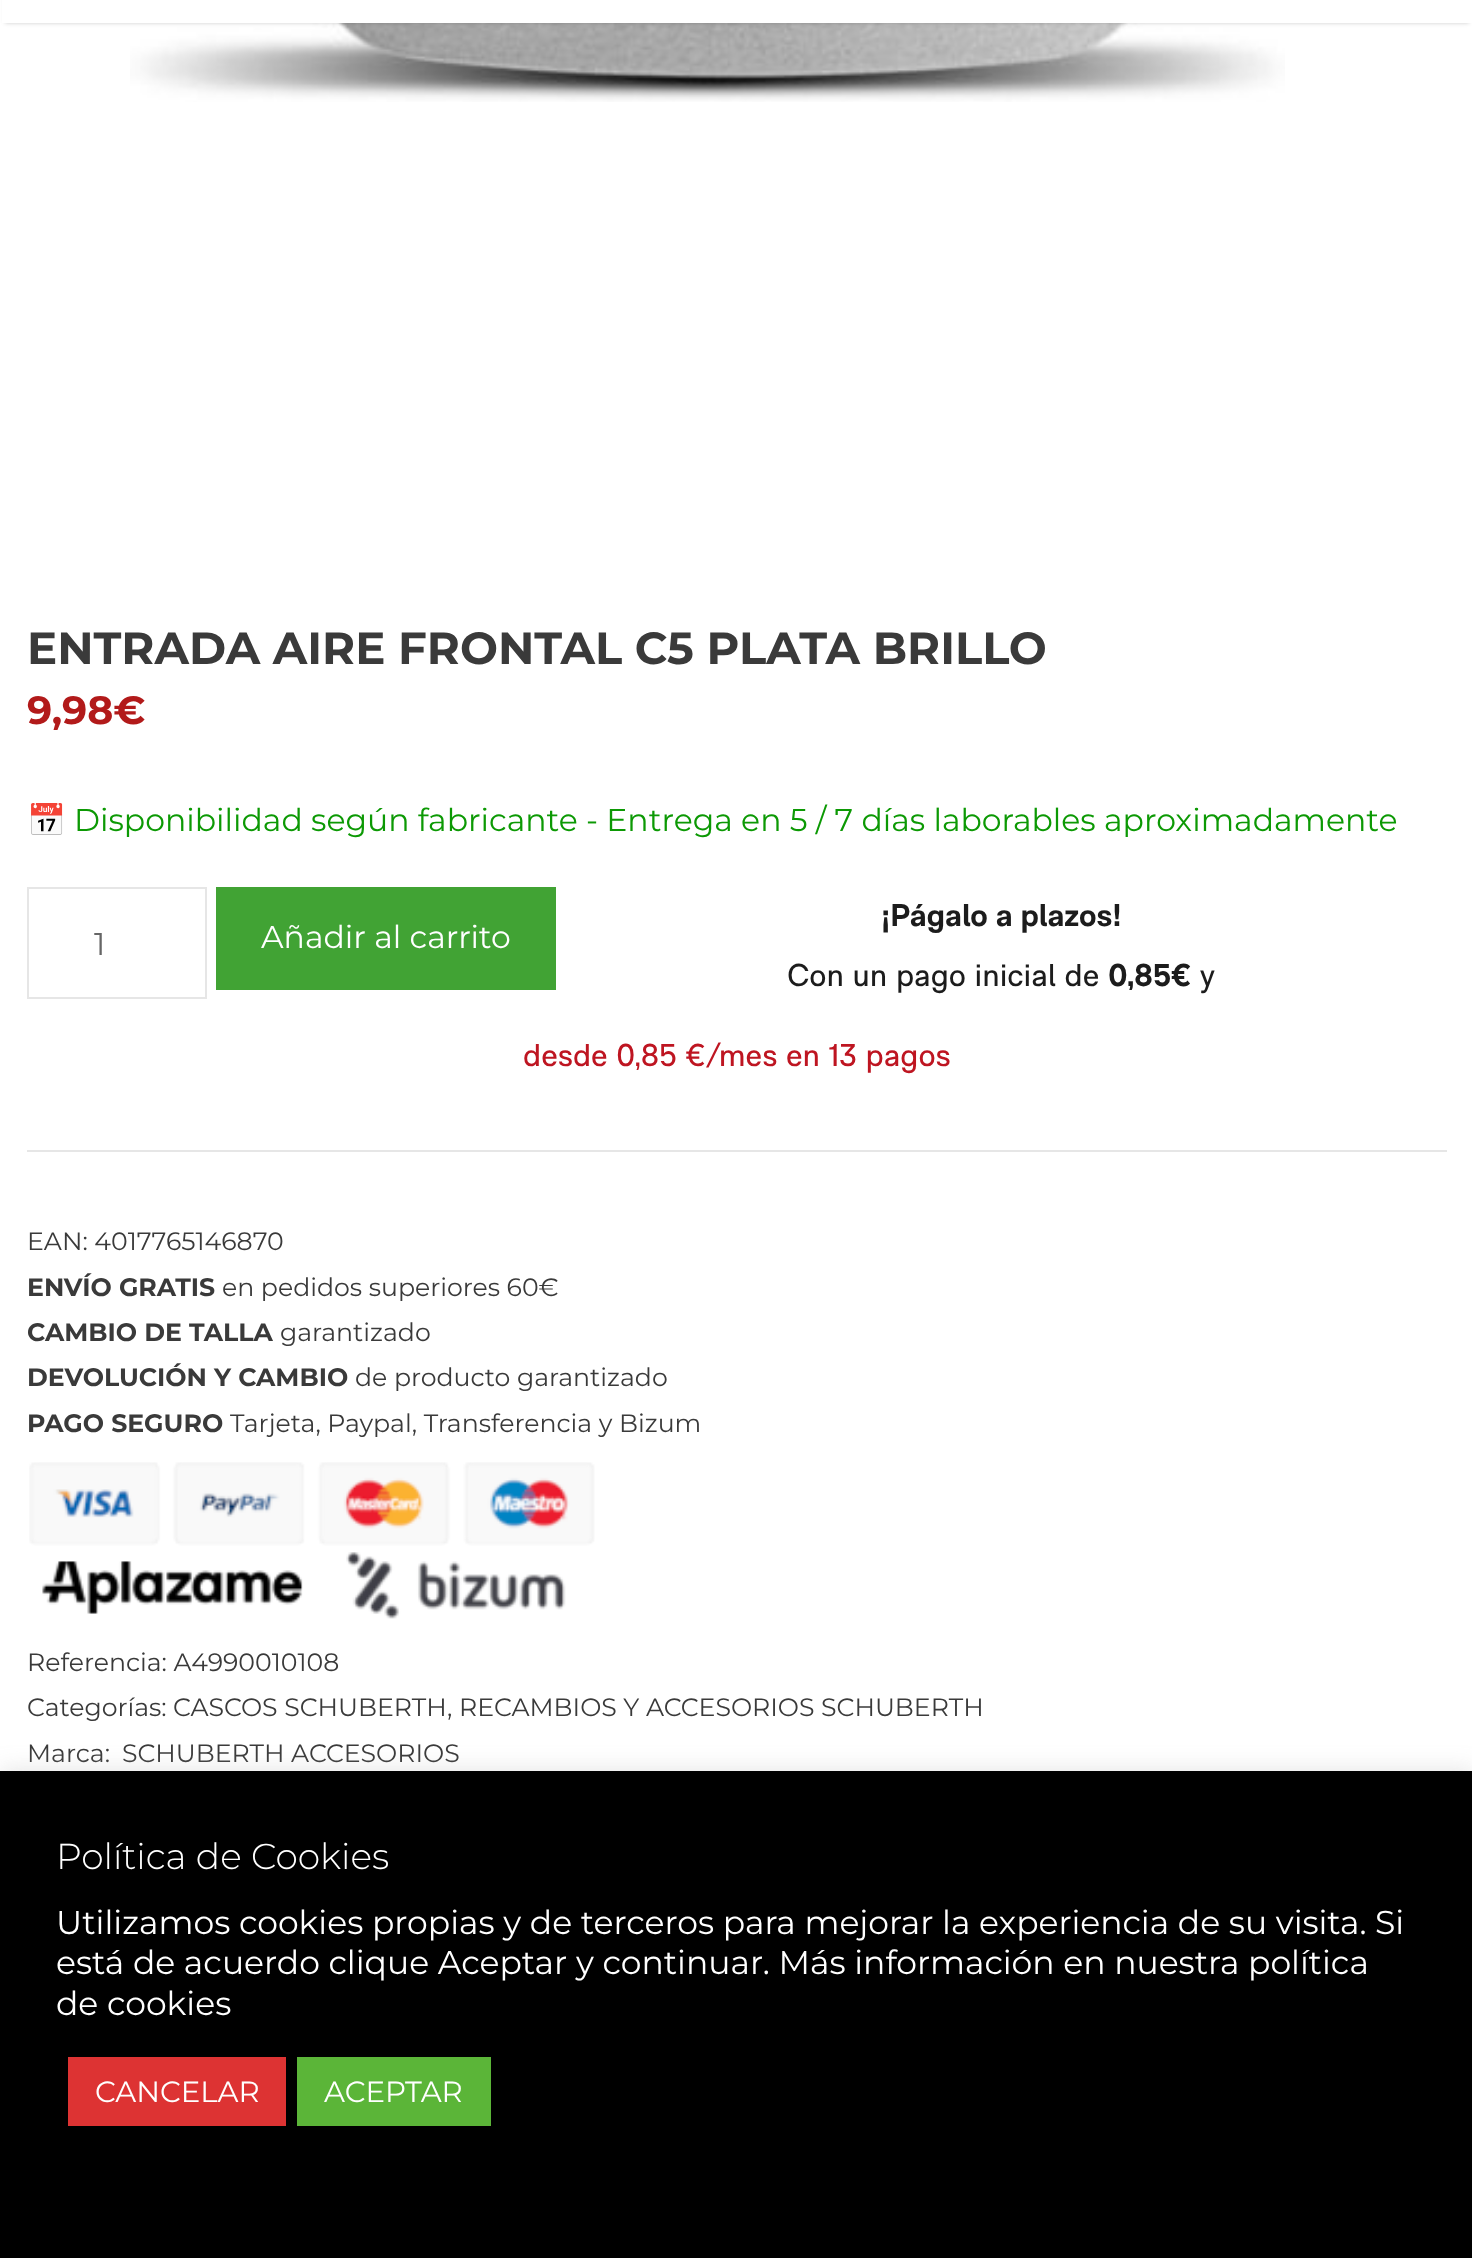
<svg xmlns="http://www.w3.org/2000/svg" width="1472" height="2258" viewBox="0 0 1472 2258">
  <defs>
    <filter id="blur1" x="-50%" y="-200%" width="200%" height="500%"><feGaussianBlur stdDeviation="2"/></filter>
    <filter id="blur2" x="-50%" y="-200%" width="200%" height="500%"><feGaussianBlur stdDeviation="11"/></filter>
  </defs>
  <rect width="100%" height="100%" fill="#ffffff"/>
  <image x="130" y="23" width="1155" height="79" href="img1.png"/>
  <rect x="5" y="-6" width="1464" height="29" fill="#000000" fill-opacity="0.2" filter="url(#blur1)"/>
  <rect x="2" y="0" width="1470" height="23" fill="#ffffff"/>
  <text x="27" y="664" font-family="Montserrat" font-size="45" font-weight="bold" fill="#3a3a3a">ENTRADA AIRE FRONTAL C5 PLATA BRILLO</text>
  <text x="27" y="724" font-family="Montserrat" font-size="39.5" font-weight="bold" fill="#b21a1a">9,98€</text>
  <text x="27" y="831" font-family="Noto Color Emoji" font-size="31.5" fill="#0c9904">📅</text>
  <text x="74" y="831" font-family="Montserrat" font-size="31.5" fill="#0c9904">Disponibilidad según fabricante - Entrega en 5 / 7 días laborables aproximadamente</text>
  <rect x="28" y="888" width="178" height="110" fill="none" stroke="#e6e6e6" stroke-width="2"/>
  <text x="94" y="955" font-family="Montserrat" font-size="31.5" fill="#666666">1</text>
  <rect x="216" y="887" width="340" height="103" fill="#41a334"/>
  <text x="261" y="948" font-family="Montserrat" font-size="31.5" fill="#ffffff">Añadir al carrito</text>
  <text x="881" y="926" font-family="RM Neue" font-size="31.5" font-weight="bold" fill="#1c1c1c">¡Págalo a plazos!</text>
  <text x="787" y="986" font-family="RM Neue" font-size="31.5" fill="#1c1c1c">Con un pago inicial de</text>
  <text x="1108" y="986" font-family="RM Neue" font-size="31.5" font-weight="bold" fill="#1c1c1c">0,85€</text>
  <text x="1200" y="986" font-family="RM Neue" font-size="31.5" fill="#1c1c1c">y</text>
  <text x="523" y="1066" font-family="RM Neue" font-size="31.5" fill="#be1521">desde 0,85 €/mes en 13 pagos</text>
  <rect x="27" y="1150" width="1420" height="2" fill="#e6e6e6"/>
  <text x="27" y="1250" font-family="Montserrat" font-size="25.2" fill="#3a3a3a">EAN: 4017765146870</text>
  <text x="27" y="1296" font-family="Montserrat" font-size="25.2" font-weight="bold" fill="#3a3a3a">ENVÍO GRATIS</text>
  <text x="222" y="1296" font-family="Montserrat" font-size="25.2" fill="#3a3a3a">en pedidos superiores 60€</text>
  <text x="27" y="1341" font-family="Montserrat" font-size="25.2" font-weight="bold" fill="#3a3a3a">CAMBIO DE TALLA</text>
  <text x="280" y="1341" font-family="Montserrat" font-size="25.2" fill="#3a3a3a">garantizado</text>
  <text x="27" y="1386" font-family="Montserrat" font-size="25.2" font-weight="bold" fill="#3a3a3a">DEVOLUCIÓN Y CAMBIO</text>
  <text x="355" y="1386" font-family="Montserrat" font-size="25.2" fill="#3a3a3a">de producto garantizado</text>
  <text x="27" y="1432" font-family="Montserrat" font-size="25.2" font-weight="bold" fill="#3a3a3a">PAGO SEGURO</text>
  <text x="230" y="1432" font-family="Montserrat" font-size="25.2" fill="#3a3a3a">Tarjeta, Paypal, Transferencia y Bizum</text>
  <image x="29" y="1462" width="566" height="157" href="img2.png"/>
  <text x="27" y="1671" font-family="Montserrat" font-size="25.2" fill="#3a3a3a">Referencia: A4990010108</text>
  <text x="27" y="1716" font-family="Montserrat" font-size="25.2" fill="#3a3a3a">Categorías:</text>
  <text x="173" y="1716" font-family="Montserrat" font-size="25.2" fill="#3a3a3a">CASCOS SCHUBERTH</text>
  <text x="447" y="1716" font-family="Montserrat" font-size="25.2" fill="#3a3a3a">,</text>
  <text x="459" y="1716" font-family="Montserrat" font-size="25.2" fill="#3a3a3a">RECAMBIOS Y ACCESORIOS SCHUBERTH</text>
  <text x="27" y="1762" font-family="Montserrat" font-size="25.2" fill="#3a3a3a">Marca:</text>
  <text x="122" y="1762" font-family="Montserrat" font-size="25.2" fill="#3a3a3a">SCHUBERTH ACCESORIOS</text>
  <rect x="0" y="1769" width="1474" height="488" fill="#acabab" fill-opacity="0.3" filter="url(#blur2)"/>
  <rect x="0" y="1771" width="1472" height="487" fill="#000000"/>
  <text x="56" y="1869" font-family="Montserrat" font-size="36" font-weight="300" fill="#ffffff">Política de Cookies</text>
  <text x="56" y="1934" font-family="Montserrat" font-size="33" fill="#ffffff">Utilizamos cookies propias y de terceros para mejorar la experiencia de su visita. Si</text>
  <text x="56" y="1974" font-family="Montserrat" font-size="33" fill="#ffffff">está de acuerdo clique Aceptar y continuar. Más información en nuestra política</text>
  <text x="56" y="2015" font-family="Montserrat" font-size="33" fill="#ffffff">de cookies</text>
  <rect x="68" y="2057" width="218" height="69" fill="#dd3333"/>
  <text x="95" y="2102" font-family="Montserrat" font-size="29.25" fill="#ffffff">CANCELAR</text>
  <rect x="297" y="2057" width="194" height="69" fill="#5bb538"/>
  <text x="324" y="2102" font-family="Montserrat" font-size="29.25" fill="#ffffff">ACEPTAR</text>
</svg>
